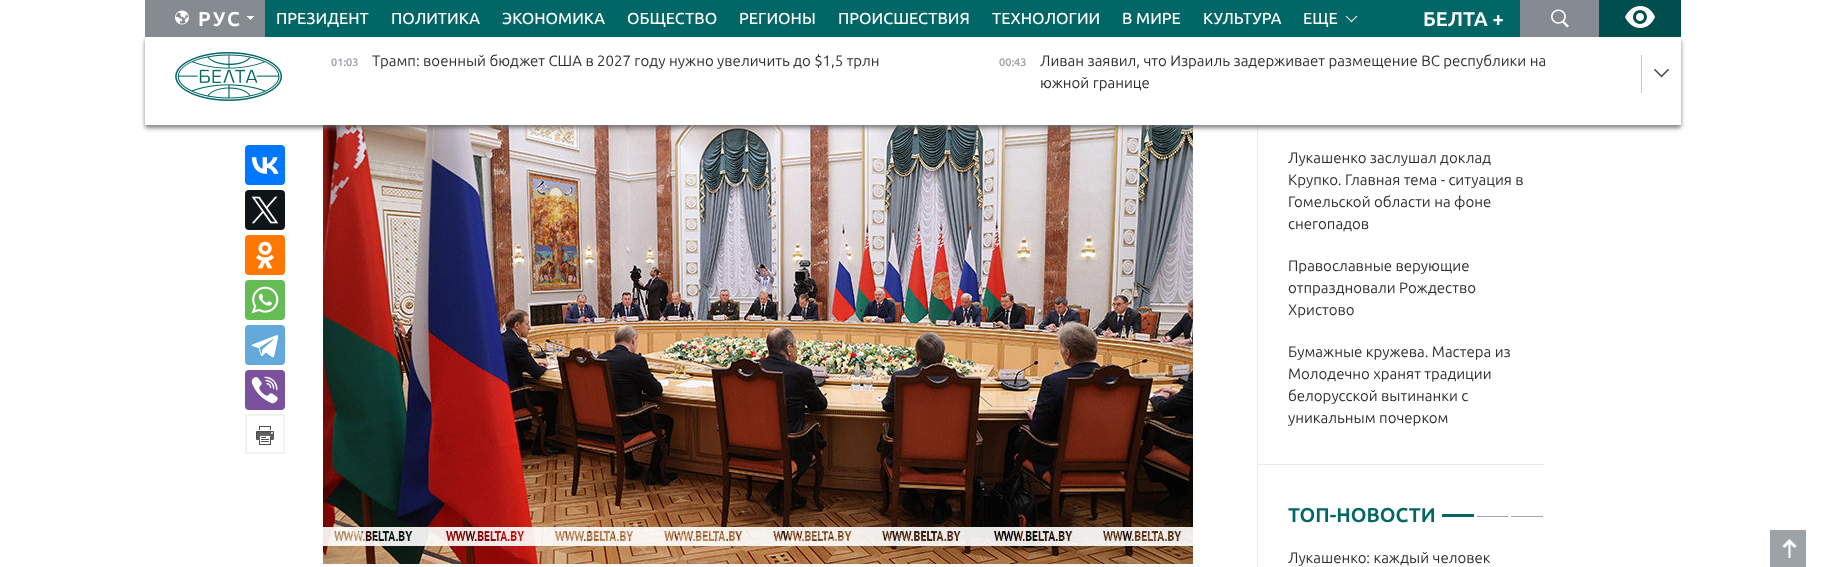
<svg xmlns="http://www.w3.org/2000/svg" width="1826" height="567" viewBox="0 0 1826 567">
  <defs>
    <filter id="blur1" x="-50%" y="-200%" width="200%" height="500%"><feGaussianBlur stdDeviation="2"/></filter>
  </defs>
  <rect width="100%" height="100%" fill="#ffffff"/>
  <rect x="1257" y="125" width="1" height="442" fill="#e6eaed"/>
  <image x="323" y="125" width="870" height="439" href="img15.png"/>
  <rect x="145" y="40" width="1536" height="88" fill="#646464" fill-opacity="0.8" filter="url(#blur1)"/>
  <rect x="265" y="0" width="1255" height="37" fill="#006666"/>
  <rect x="145" y="0" width="120" height="37" fill="#858b90"/>
  <image x="175" y="10" width="14" height="15" href="img1.png"/>
  <text x="198" y="26" font-family="Ubuntu" font-size="20" font-weight="bold" letter-spacing="2" fill="#ffffff">РУС</text>
  <image x="247" y="16" width="7" height="4" href="img2.png"/>
  <text x="276" y="24" font-family="Ubuntu" font-size="16" font-weight="500" fill="#ffffff">ПРЕЗИДЕНТ</text>
  <text x="391" y="24" font-family="Ubuntu" font-size="16" font-weight="500" fill="#ffffff">ПОЛИТИКА</text>
  <text x="502" y="24" font-family="Ubuntu" font-size="16" font-weight="500" fill="#ffffff">ЭКОНОМИКА</text>
  <text x="627" y="24" font-family="Ubuntu" font-size="16" font-weight="500" fill="#ffffff">ОБЩЕСТВО</text>
  <text x="739" y="24" font-family="Ubuntu" font-size="16" font-weight="500" fill="#ffffff">РЕГИОНЫ</text>
  <text x="838" y="24" font-family="Ubuntu" font-size="16" font-weight="500" fill="#ffffff">ПРОИСШЕСТВИЯ</text>
  <text x="992" y="24" font-family="Ubuntu" font-size="16" font-weight="500" fill="#ffffff">ТЕХНОЛОГИИ</text>
  <text x="1122" y="24" font-family="Ubuntu" font-size="16" font-weight="500" fill="#ffffff">В МИРЕ</text>
  <text x="1203" y="24" font-family="Ubuntu" font-size="16" font-weight="500" fill="#ffffff">КУЛЬТУРА</text>
  <text x="1303" y="24" font-family="Ubuntu" font-size="16" font-weight="500" fill="#ffffff">ЕЩЕ</text>
  <image x="1345" y="15" width="13" height="8" href="img3.png"/>
  <text x="1423" y="26" font-family="Ubuntu" font-size="20" font-weight="bold" fill="#ffffff">БЕЛТА +</text>
  <rect x="1520" y="0" width="79" height="37" fill="#858b90"/>
  <image x="1551" y="9" width="18" height="19" href="img4.png"/>
  <rect x="1599" y="0" width="82" height="37" fill="#004e4e"/>
  <image x="1625" y="6" width="30" height="22" href="img5.png"/>
  <rect x="145" y="37" width="1536" height="88" fill="#ffffff"/>
  <image x="175" y="52" width="107" height="49" href="img6.png"/>
  <text x="331" y="66" font-family="Ubuntu" font-size="11" font-weight="bold" fill="#a3a9ad">01:03</text>
  <text x="372" y="66" font-family="Ubuntu" font-size="15" fill="#2e2e2e">Трамп: военный бюджет США в 2027 году нужно увеличить до $1,5 трлн</text>
  <text x="999" y="66" font-family="Ubuntu" font-size="11" font-weight="bold" fill="#a3a9ad">00:43</text>
  <text x="1040" y="66" font-family="Ubuntu" font-size="15" fill="#2e2e2e">Ливан заявил, что Израиль задерживает размещение ВС республики на</text>
  <text x="1040" y="88" font-family="Ubuntu" font-size="15" fill="#2e2e2e">южной границе</text>
  <image x="1654" y="69" width="15" height="9" href="img7.png"/>
  <rect x="1641" y="55" width="1" height="38" fill="#c8c8c8"/>
  <rect x="245" y="145" width="40" height="40" rx="4" fill="#0077ff"/>
  <image x="251" y="157" width="28" height="17" href="img8.png"/>
  <rect x="245" y="190" width="40" height="40" rx="4" fill="#0f1419"/>
  <image x="251" y="196" width="28" height="28" href="img9.png"/>
  <rect x="245" y="235" width="40" height="40" rx="4" fill="#ff7700"/>
  <image x="256" y="241" width="18" height="28" href="img10.png"/>
  <rect x="245" y="280" width="40" height="40" rx="4" fill="#65bc54"/>
  <image x="251" y="286" width="28" height="28" href="img11.png"/>
  <rect x="245" y="325" width="40" height="40" rx="4" fill="#64a9dc"/>
  <image x="251" y="335" width="28" height="23" href="img12.png"/>
  <rect x="245" y="370" width="40" height="40" rx="4" fill="#7b519d"/>
  <image x="251" y="376" width="27" height="28" href="img13.png"/>
  <image x="245" y="414" width="40" height="40" href="img14.png"/>
  <rect x="1257" y="464" width="287" height="1" fill="#e6eaed"/>
  <text x="1288" y="163" font-family="Ubuntu" font-size="15" fill="#2e2e2e">Лукашенко заслушал доклад</text>
  <text x="1288" y="185" font-family="Ubuntu" font-size="15" fill="#2e2e2e">Крупко. Главная тема - ситуация в</text>
  <text x="1288" y="207" font-family="Ubuntu" font-size="15" fill="#2e2e2e">Гомельской области на фоне</text>
  <text x="1288" y="229" font-family="Ubuntu" font-size="15" fill="#2e2e2e">снегопадов</text>
  <text x="1288" y="271" font-family="Ubuntu" font-size="15" fill="#2e2e2e">Православные верующие</text>
  <text x="1288" y="293" font-family="Ubuntu" font-size="15" fill="#2e2e2e">отпраздновали Рождество</text>
  <text x="1288" y="315" font-family="Ubuntu" font-size="15" fill="#2e2e2e">Христово</text>
  <text x="1288" y="357" font-family="Ubuntu" font-size="15" fill="#2e2e2e">Бумажные кружева. Мастера из</text>
  <text x="1288" y="379" font-family="Ubuntu" font-size="15" fill="#2e2e2e">Молодечно хранят традиции</text>
  <text x="1288" y="401" font-family="Ubuntu" font-size="15" fill="#2e2e2e">белорусской вытинанки с</text>
  <text x="1288" y="423" font-family="Ubuntu" font-size="15" fill="#2e2e2e">уникальным почерком</text>
  <text x="1288" y="522" font-family="Ubuntu" font-size="20" font-weight="bold" fill="#006666">ТОП-НОВОСТИ</text>
  <rect x="1442" y="514" width="32" height="3" fill="#006666"/>
  <rect x="1477" y="516" width="31" height="1" fill="#a3a9ad"/>
  <rect x="1511" y="516" width="32" height="1" fill="#a3a9ad"/>
  <text x="1288" y="563" font-family="Ubuntu" font-size="15" fill="#2e2e2e">Лукашенко: каждый человек</text>
  <image x="1770" y="530" width="36" height="37" href="img16.png"/>
</svg>
